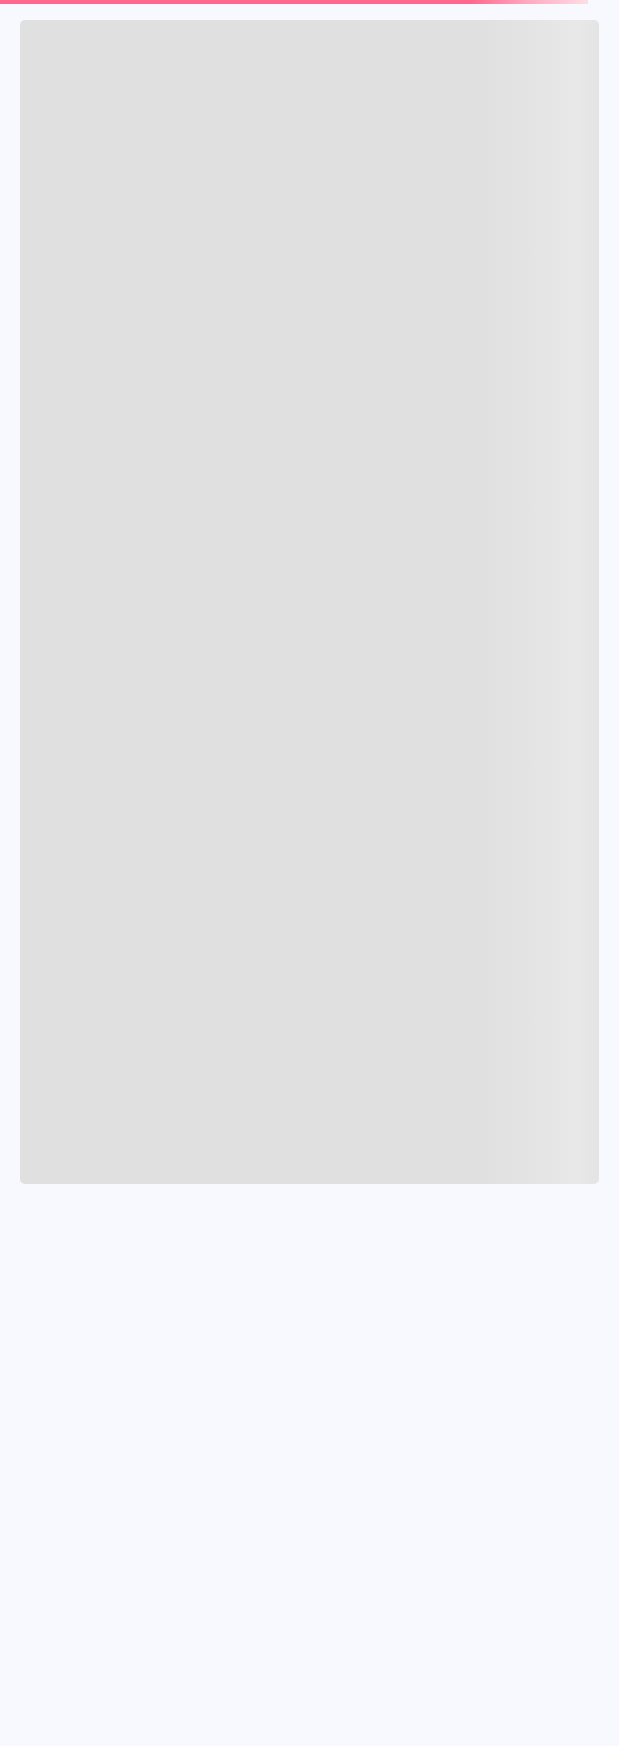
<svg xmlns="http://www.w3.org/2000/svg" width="619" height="1746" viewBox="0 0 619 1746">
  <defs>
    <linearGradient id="g1" gradientUnits="userSpaceOnUse" x1="0" y1="2" x2="588" y2="2"><stop offset="0.8" stop-color="#ff678d"/><stop offset="0.9" stop-color="#ffabc0"/><stop offset="1" stop-color="#ffdde6"/></linearGradient>
    <linearGradient id="g2" gradientUnits="userSpaceOnUse" x1="20" y1="602" x2="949" y2="602"><stop offset="0" stop-color="#e0e0e0"/><stop offset="0.5" stop-color="#e0e0e0"/><stop offset="0.6" stop-color="#e8e8e8"/><stop offset="0.65" stop-color="#e0e0e0"/><stop offset="1" stop-color="#e0e0e0"/></linearGradient>
  </defs>
  <rect width="100%" height="100%" fill="#f8f9ff"/>
  <rect x="0" y="0" width="588" height="4" fill="url(#g1)"/>
  <rect x="20" y="20" width="579" height="1164" rx="5" fill="url(#g2)"/>
</svg>
